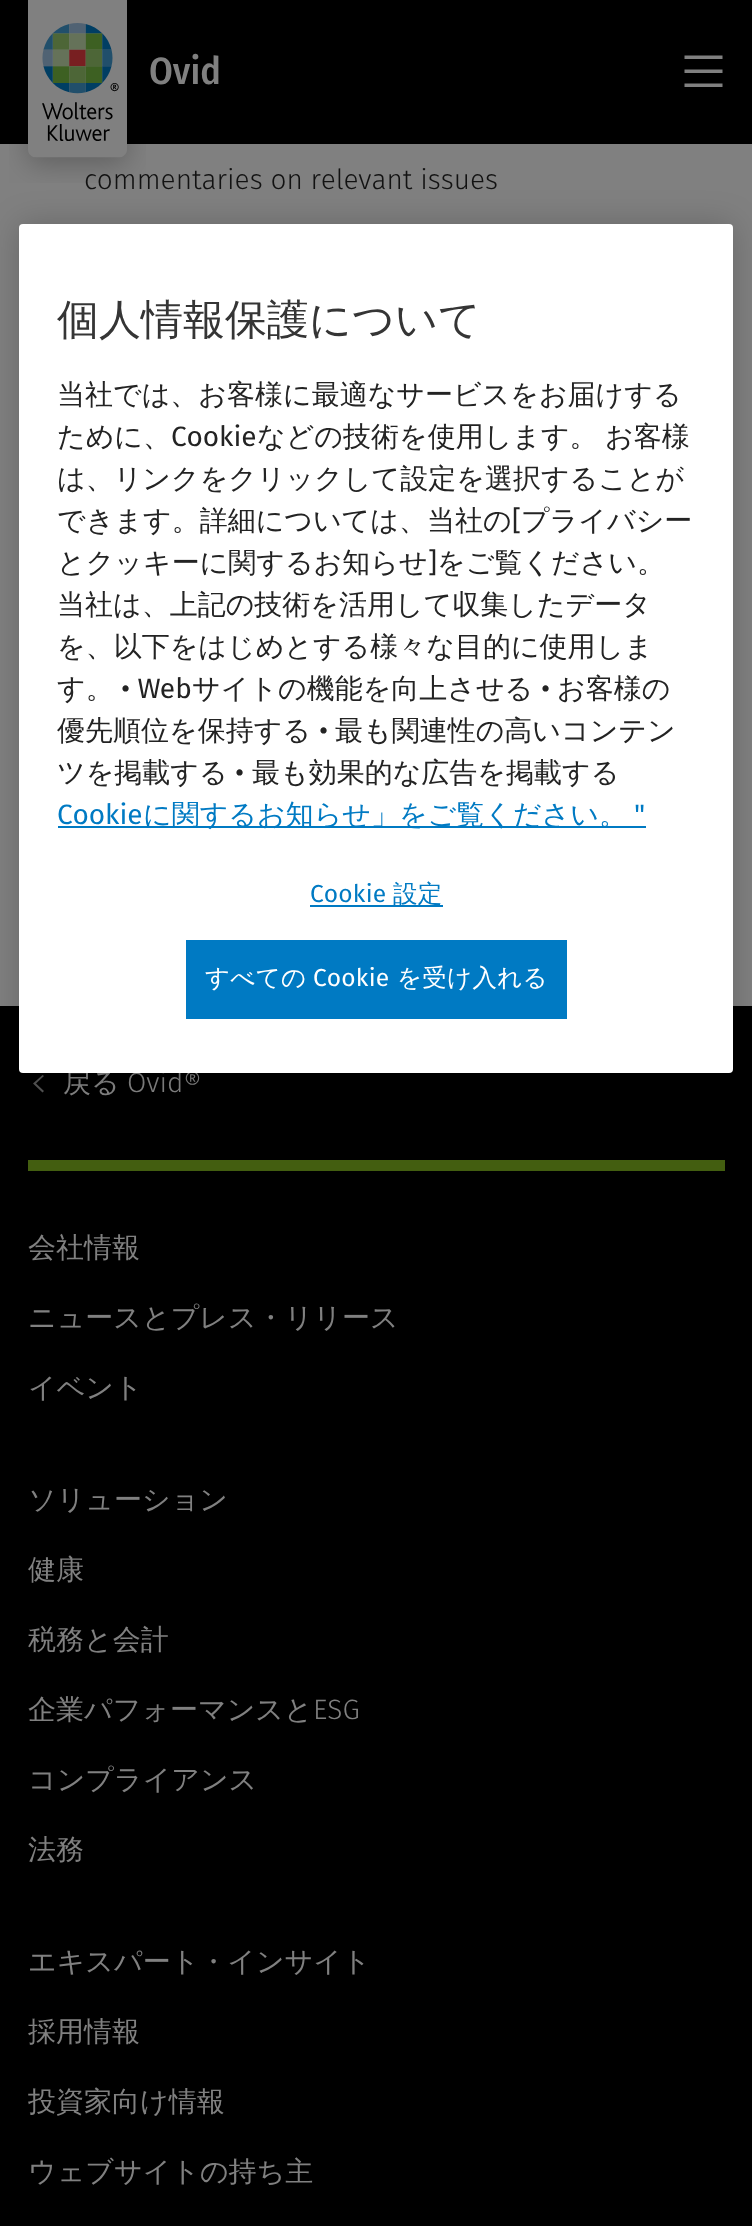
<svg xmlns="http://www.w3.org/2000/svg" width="752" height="2226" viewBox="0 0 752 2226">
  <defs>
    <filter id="blur1" x="-50%" y="-200%" width="200%" height="500%"><feGaussianBlur stdDeviation="16"/></filter>
  </defs>
  <rect width="100%" height="100%" fill="#808080"/>
  <rect x="0" y="0" width="752" height="144" fill="#000000"/>
  <text x="84" y="189" font-family="Fira Sans" font-size="28" font-weight="300" fill="#121212">commentaries on relevant issues</text>
  <image x="9" y="0" width="137" height="183" href="img1.png"/>
  <text x="149" y="84" font-family="Fira Sans Condensed" font-size="38" font-weight="500" fill="#808080">Ovid</text>
  <path d="M684.5 55.5V59H722.5V55.5ZM684.5 73H722.5V69.5H684.5ZM684.5 87H722.5V83.5H684.5Z" fill="#808080"/>
  <rect x="0" y="1006" width="752" height="1220" fill="#000000"/>
  <path d="M42.5 1092.5L33 1083.5L42.5 1075L44 1076L36 1083.5L44 1091Z" fill="#525252"/>
  <text x="63" y="1092" font-family="WenQuanYi Zen Hei" font-size="28" font-weight="500" fill="#808080">戻る</text>
  <text x="127" y="1092" font-family="Fira Sans" font-size="28" font-weight="300" fill="#808080">Ovid®</text>
  <rect x="28" y="1160" width="697" height="11" fill="#435e10"/>
  <text x="28" y="1257" font-family="WenQuanYi Zen Hei" font-size="28" font-weight="500" fill="#808080">会社情報</text>
  <text x="28" y="1327" font-family="WenQuanYi Zen Hei" font-size="28" font-weight="500" fill="#808080">ニュースとプレス・リリース</text>
  <text x="28" y="1397" font-family="WenQuanYi Zen Hei" font-size="28" font-weight="500" fill="#808080">イベント</text>
  <text x="28" y="1509" font-family="WenQuanYi Zen Hei" font-size="28" font-weight="500" fill="#808080">ソリューション</text>
  <text x="28" y="1579" font-family="WenQuanYi Zen Hei" font-size="28" font-weight="500" fill="#808080">健康</text>
  <text x="28" y="1649" font-family="WenQuanYi Zen Hei" font-size="28" font-weight="500" fill="#808080">税務と会計</text>
  <text x="28" y="1719" font-family="WenQuanYi Zen Hei" font-size="28" font-weight="500" fill="#808080">企業パフォーマンスと</text>
  <text x="313" y="1719" font-family="Fira Sans" font-size="28" font-weight="300" fill="#808080">ESG</text>
  <text x="28" y="1789" font-family="WenQuanYi Zen Hei" font-size="28" font-weight="500" fill="#808080">コンプライアンス</text>
  <text x="28" y="1859" font-family="WenQuanYi Zen Hei" font-size="28" font-weight="500" fill="#808080">法務</text>
  <text x="28" y="1971" font-family="WenQuanYi Zen Hei" font-size="28" font-weight="500" fill="#808080">エキスパート・インサイト</text>
  <text x="28" y="2041" font-family="WenQuanYi Zen Hei" font-size="28" font-weight="500" fill="#808080">採用情報</text>
  <text x="28" y="2111" font-family="WenQuanYi Zen Hei" font-size="28" font-weight="500" fill="#808080">投資家向け情報</text>
  <text x="28" y="2181" font-family="WenQuanYi Zen Hei" font-size="28" font-weight="500" fill="#808080">ウェブサイトの持ち主</text>
  <rect x="19" y="224" width="714" height="849" rx="4" fill="#000000" fill-opacity="0.2" filter="url(#blur1)"/>
  <rect x="19" y="224" width="714" height="849" rx="4" fill="#ffffff"/>
  <text x="57" y="334" font-family="WenQuanYi Zen Hei" font-size="42" font-weight="500" fill="#353535">個人情報保護について</text>
  <text x="57" y="404" font-family="WenQuanYi Zen Hei" font-size="28" font-weight="500" fill="#232323">当社では、お客様に最適なサービスをお届けする</text>
  <text x="57" y="446" font-family="WenQuanYi Zen Hei" font-size="28" font-weight="500" fill="#232323">ために、</text>
  <text x="171" y="446" font-family="Fira Sans" font-size="28" fill="#232323">Cookie</text>
  <text x="257" y="446" font-family="WenQuanYi Zen Hei" font-size="28" font-weight="500" fill="#232323">などの技術を使用します。</text>
  <text x="605" y="446" font-family="WenQuanYi Zen Hei" font-size="28" font-weight="500" fill="#232323">お客様</text>
  <text x="57" y="488" font-family="WenQuanYi Zen Hei" font-size="28" font-weight="500" fill="#232323">は、リンクをクリックして設定を選択することが</text>
  <text x="57" y="530" font-family="WenQuanYi Zen Hei" font-size="28" font-weight="500" fill="#232323">できます。詳細については、当社の</text>
  <text x="512" y="530" font-family="Fira Sans" font-size="28" fill="#232323">[</text>
  <text x="521" y="530" font-family="WenQuanYi Zen Hei" font-size="28" font-weight="500" fill="#232323">プライバシー</text>
  <text x="57" y="572" font-family="WenQuanYi Zen Hei" font-size="28" font-weight="500" fill="#232323">とクッキーに関するお知らせ</text>
  <text x="428" y="572" font-family="Fira Sans" font-size="28" fill="#232323">]</text>
  <text x="437" y="572" font-family="WenQuanYi Zen Hei" font-size="28" font-weight="500" fill="#232323">をご覧ください。</text>
  <text x="57" y="614" font-family="WenQuanYi Zen Hei" font-size="28" font-weight="500" fill="#232323">当社は、上記の技術を活用して収集したデータ</text>
  <text x="57" y="656" font-family="WenQuanYi Zen Hei" font-size="28" font-weight="500" fill="#232323">を、以下をはじめとする様々な目的に使用しま</text>
  <text x="57" y="698" font-family="WenQuanYi Zen Hei" font-size="28" font-weight="500" fill="#232323">す。</text>
  <text x="121" y="698" font-family="Fira Sans" font-size="28" fill="#232323">• Web</text>
  <text x="192" y="698" font-family="WenQuanYi Zen Hei" font-size="28" font-weight="500" fill="#232323">サイトの機能を向上させる</text>
  <text x="541" y="698" font-family="Fira Sans" font-size="28" fill="#232323">•</text>
  <text x="557" y="698" font-family="WenQuanYi Zen Hei" font-size="28" font-weight="500" fill="#232323">お客様の</text>
  <text x="57" y="740" font-family="WenQuanYi Zen Hei" font-size="28" font-weight="500" fill="#232323">優先順位を保持する</text>
  <text x="319" y="740" font-family="Fira Sans" font-size="28" fill="#232323">•</text>
  <text x="335" y="740" font-family="WenQuanYi Zen Hei" font-size="28" font-weight="500" fill="#232323">最も関連性の高いコンテン</text>
  <text x="57" y="782" font-family="WenQuanYi Zen Hei" font-size="28" font-weight="500" fill="#232323">ツを掲載する</text>
  <text x="235" y="782" font-family="Fira Sans" font-size="28" fill="#232323">•</text>
  <text x="252" y="782" font-family="WenQuanYi Zen Hei" font-size="28" font-weight="500" fill="#232323">最も効果的な広告を掲載する</text>
  <text x="57" y="824" font-family="Fira Sans" font-size="28" fill="#007ac3">Cookie</text>
  <rect x="58" y="826" width="588" height="2" fill="#007ac3"/>
  <text x="143" y="824" font-family="WenQuanYi Zen Hei" font-size="28" font-weight="500" fill="#007ac3">に関するお知らせ」をご覧ください。</text>
  <text x="634" y="824" font-family="Fira Sans" font-size="28" fill="#007ac3">"</text>
  <text x="310" y="902" font-family="Fira Sans" font-size="24.5" letter-spacing="0.25" fill="#007ac3">Cookie</text>
  <rect x="310" y="905" width="133" height="2" fill="#007ac3"/>
  <text x="393" y="902" font-family="WenQuanYi Zen Hei" font-size="24.5" font-weight="500" letter-spacing="0.25" fill="#007ac3">設定</text>
  <rect x="186" y="940" width="381" height="79" fill="#007ac3"/>
  <text x="205" y="986" font-family="WenQuanYi Zen Hei" font-size="24.5" font-weight="500" letter-spacing="0.25" fill="#ffffff">すべての</text>
  <text x="313" y="986" font-family="Fira Sans" font-size="24.5" letter-spacing="0.25" fill="#ffffff">Cookie</text>
  <text x="397" y="986" font-family="WenQuanYi Zen Hei" font-size="24.5" font-weight="500" letter-spacing="0.25" fill="#ffffff">を受け入れる</text>
</svg>
